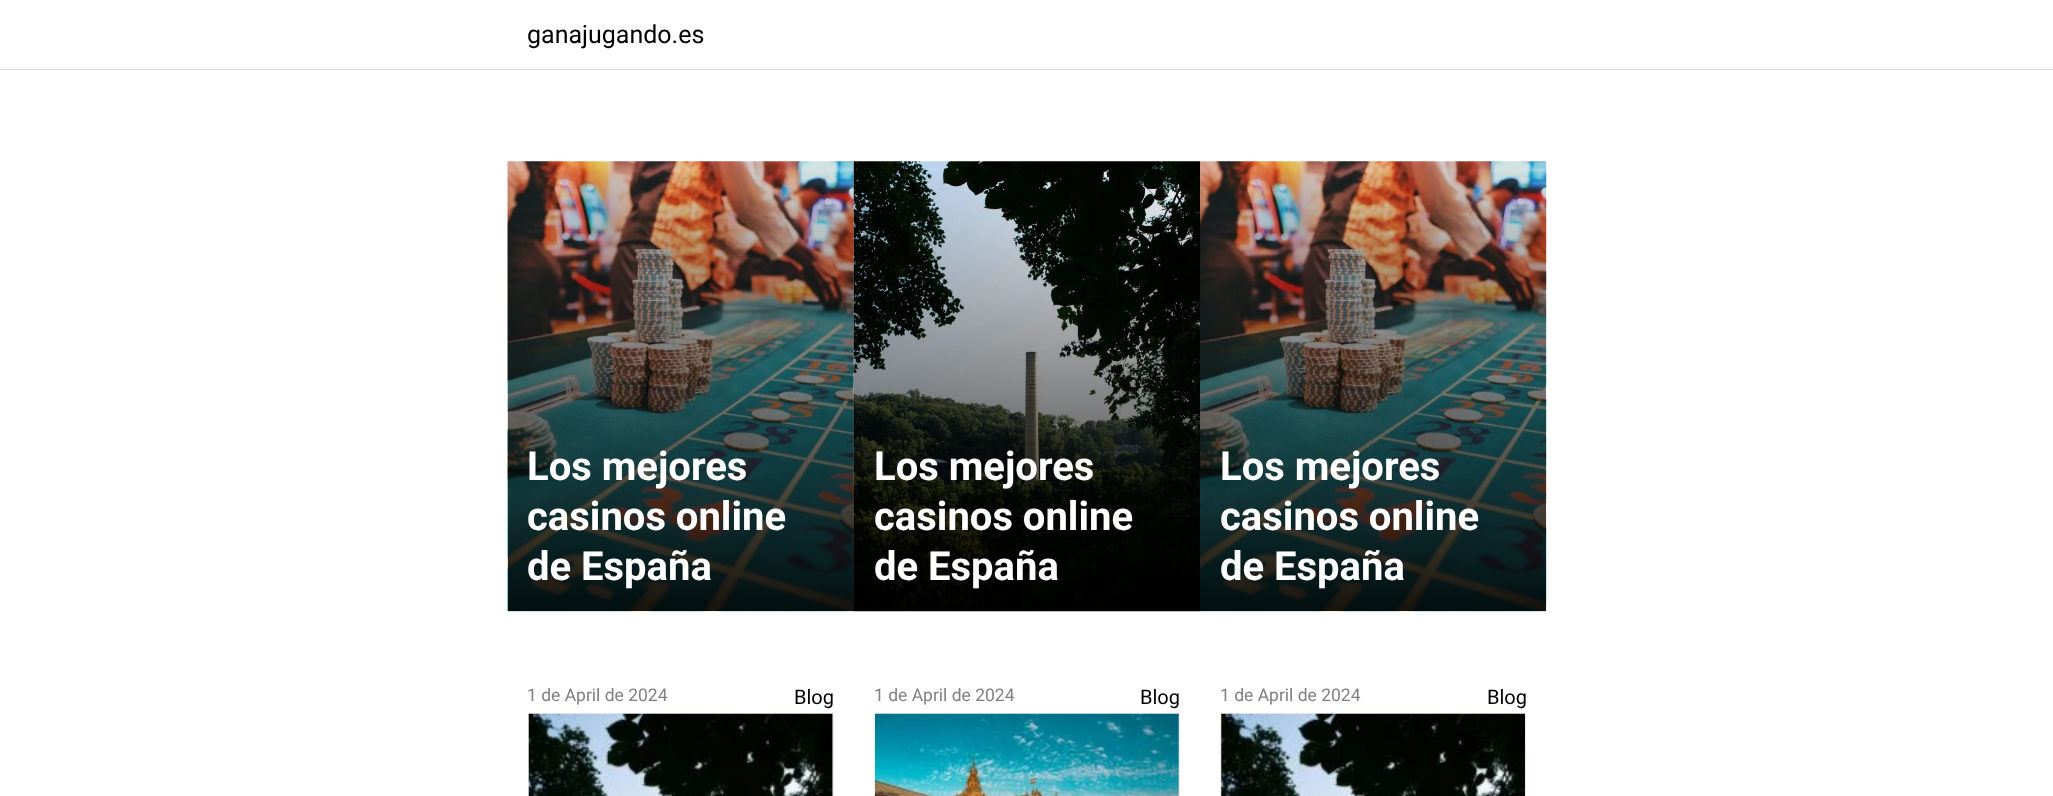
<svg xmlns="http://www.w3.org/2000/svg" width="2053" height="796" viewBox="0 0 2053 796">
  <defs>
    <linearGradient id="g1" gradientUnits="userSpaceOnUse" x1="681" y1="161" x2="681" y2="611"><stop offset="0" stop-color="#000000" stop-opacity="0"/><stop offset="1" stop-color="#000000" stop-opacity="0.9"/></linearGradient>
    <linearGradient id="g2" gradientUnits="userSpaceOnUse" x1="1027" y1="161" x2="1027" y2="611"><stop offset="0" stop-color="#000000" stop-opacity="0"/><stop offset="1" stop-color="#000000" stop-opacity="0.9"/></linearGradient>
    <linearGradient id="g3" gradientUnits="userSpaceOnUse" x1="1373" y1="161" x2="1373" y2="611"><stop offset="0" stop-color="#000000" stop-opacity="0"/><stop offset="1" stop-color="#000000" stop-opacity="0.9"/></linearGradient>
  </defs>
  <rect width="100%" height="100%" fill="#ffffff"/>
  <rect x="0" y="69" width="2053" height="1" fill="#dbdbdb"/>
  <text x="527" y="43" font-family="Roboto" font-size="25" fill="#000000">ganajugando.es</text>
  <image x="507" y="161" width="347" height="451" href="img1.png"/>
  <rect x="508" y="172" width="346" height="439" fill="url(#g1)"/>
  <text x="527" y="480" font-family="Roboto" font-size="40" font-weight="bold" fill="#ffffff">Los mejores</text>
  <text x="527" y="530" font-family="Roboto" font-size="40" font-weight="bold" fill="#ffffff">casinos online</text>
  <text x="527" y="580" font-family="Roboto" font-size="40" font-weight="bold" fill="#ffffff">de España</text>
  <image x="853" y="161" width="347" height="451" href="img2.png"/>
  <rect x="854" y="172" width="346" height="439" fill="url(#g2)"/>
  <text x="874" y="480" font-family="Roboto" font-size="40" font-weight="bold" fill="#ffffff">Los mejores</text>
  <text x="874" y="530" font-family="Roboto" font-size="40" font-weight="bold" fill="#ffffff">casinos online</text>
  <text x="874" y="580" font-family="Roboto" font-size="40" font-weight="bold" fill="#ffffff">de España</text>
  <image x="1200" y="161" width="347" height="451" href="img3.png"/>
  <rect x="1200" y="172" width="346" height="439" fill="url(#g3)"/>
  <text x="1220" y="480" font-family="Roboto" font-size="40" font-weight="bold" fill="#ffffff">Los mejores</text>
  <text x="1220" y="530" font-family="Roboto" font-size="40" font-weight="bold" fill="#ffffff">casinos online</text>
  <text x="1220" y="580" font-family="Roboto" font-size="40" font-weight="bold" fill="#ffffff">de España</text>
  <text x="527" y="701" font-family="Roboto" font-size="17.5" fill="#808080">1 de April de 2024</text>
  <text x="794" y="704" font-family="Roboto" font-size="20" fill="#000000">Blog</text>
  <rect x="528.5" y="713.5" width="305" height="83" fill="none" stroke="#eeeeee"/>
  <image x="528" y="713" width="305" height="83" href="img4.png"/>
  <text x="874" y="701" font-family="Roboto" font-size="17.5" fill="#808080">1 de April de 2024</text>
  <text x="1140" y="704" font-family="Roboto" font-size="20" fill="#000000">Blog</text>
  <rect x="874.5" y="713.5" width="305" height="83" fill="none" stroke="#eeeeee"/>
  <image x="875" y="713" width="304" height="83" href="img5.png"/>
  <text x="1220" y="701" font-family="Roboto" font-size="17.5" fill="#808080">1 de April de 2024</text>
  <text x="1487" y="704" font-family="Roboto" font-size="20" fill="#000000">Blog</text>
  <rect x="1220.5" y="713.5" width="305" height="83" fill="none" stroke="#eeeeee"/>
  <image x="1221" y="713" width="304" height="83" href="img6.png"/>
</svg>
